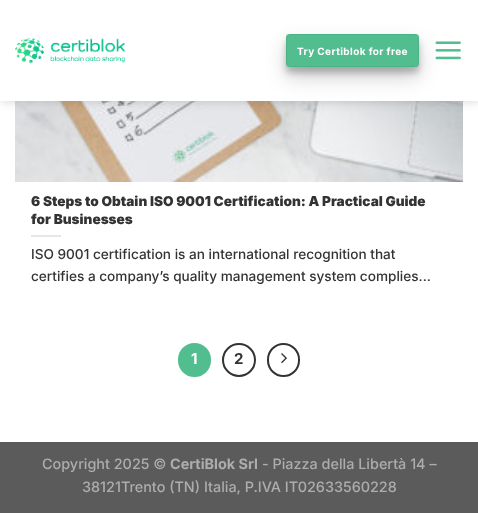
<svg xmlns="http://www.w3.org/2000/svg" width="478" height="513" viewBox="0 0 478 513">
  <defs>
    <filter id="blur1" x="-50%" y="-200%" width="200%" height="500%"><feGaussianBlur stdDeviation="5"/></filter>
    <filter id="blur2" x="-50%" y="-200%" width="200%" height="500%"><feGaussianBlur stdDeviation="3"/></filter>
    <filter id="blur3" x="-50%" y="-200%" width="200%" height="500%"><feGaussianBlur stdDeviation="10"/></filter>
  </defs>
  <rect width="100%" height="100%" fill="#ffffff"/>
  <image x="15" y="101" width="448" height="81" href="img3.png"/>
  <rect x="1" y="1" width="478" height="101" fill="#000000" fill-opacity="0.15" filter="url(#blur1)"/>
  <rect x="0" y="0" width="478" height="101" fill="#ffffff"/>
  <image x="15" y="37" width="110" height="27" href="img1.png"/>
  <rect x="286" y="40" width="133" height="33" rx="4" fill="#000000" fill-opacity="0.22" filter="url(#blur2)"/>
  <rect x="286" y="44" width="133" height="33" rx="4" fill="#000000" fill-opacity="0.19" filter="url(#blur3)"/>
  <rect x="286" y="34" width="133" height="33" rx="4" fill="#52bd8f"/>
  <rect x="286.5" y="34.5" width="132" height="32" fill="none" stroke="#000000" stroke-opacity="0.05"/>
  <text x="297" y="55" font-family="Inter" font-size="10" font-weight="bold" letter-spacing="0.4" fill="#ffffff">Try Certiblok for free</text>
  <image x="435" y="41" width="26" height="19" href="img2.png"/>
  <text x="31" y="206" font-family="Inter" font-size="13.6" font-weight="900" fill="#333333">6 Steps to Obtain ISO 9001 Certification: A Practical Guide</text>
  <text x="31" y="224" font-family="Inter" font-size="13.6" font-weight="900" fill="#333333">for Businesses</text>
  <rect x="31" y="235" width="30" height="2" fill="#e6e6e6"/>
  <text x="31" y="259" font-family="Inter" font-size="13.6" font-weight="500" fill="#333333">ISO 9001 certification is an international recognition that</text>
  <text x="31" y="281" font-family="Inter" font-size="13.6" font-weight="500" fill="#333333">certifies a company’s quality management system complies...</text>
  <rect x="179" y="344" width="31" height="32" rx="15.5" fill="#52bd8f" stroke="#52bd8f" stroke-width="2"/>
  <text x="191" y="364" font-family="Inter" font-size="15" font-weight="bold" fill="#ffffff">1</text>
  <circle cx="239" cy="360" r="16" fill="none" stroke="#333333" stroke-width="2"/>
  <text x="234" y="364" font-family="Inter" font-size="15" font-weight="bold" fill="#333333">2</text>
  <rect x="268" y="344" width="31" height="32" rx="15.5" fill="none" stroke="#333333" stroke-width="2"/>
  <image x="281" y="353" width="6" height="11" href="img4.png"/>
  <rect x="0" y="442" width="478" height="71" fill="#5b5b5b"/>
  <text x="42" y="469" font-family="Inter" font-size="14.4" font-weight="500" fill="#adadad">Copyright 2025 ©</text>
  <text x="170" y="469" font-family="Inter" font-size="14.4" font-weight="bold" fill="#adadad">CertiBlok Srl</text>
  <text x="262" y="469" font-family="Inter" font-size="14.4" font-weight="500" fill="#adadad">- Piazza della Libertà 14 –</text>
  <text x="82" y="492" font-family="Inter" font-size="14.4" font-weight="500" fill="#adadad">38121Trento (TN) Italia, P.IVA IT02633560228</text>
</svg>
